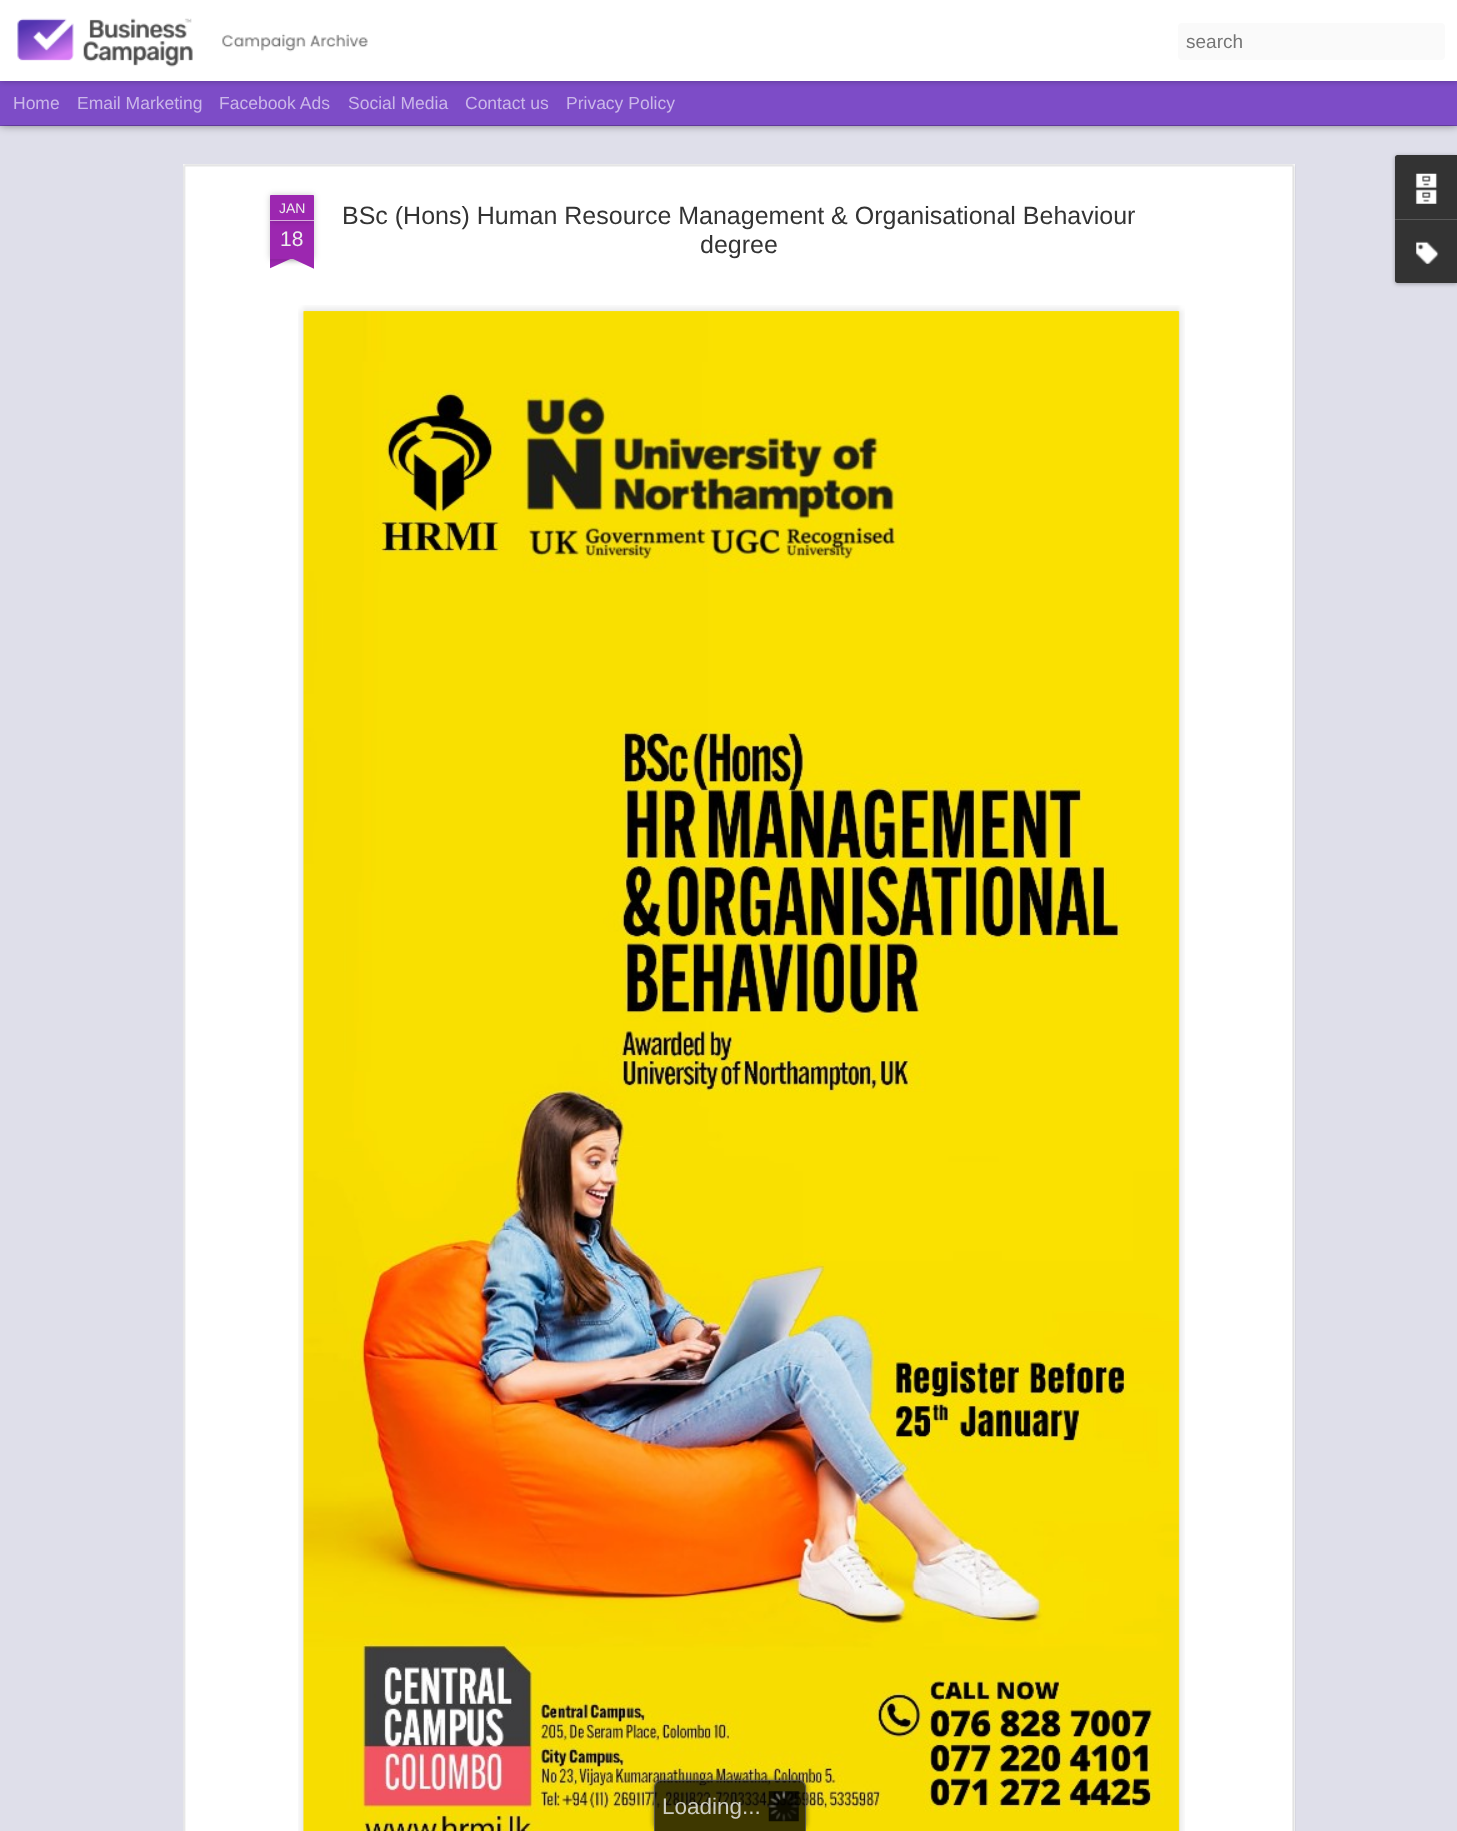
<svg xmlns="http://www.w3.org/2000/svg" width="1457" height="1831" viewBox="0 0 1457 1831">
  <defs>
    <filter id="blur1" x="-50%" y="-200%" width="200%" height="500%"><feGaussianBlur stdDeviation="5"/></filter>
    <filter id="blur2" x="-50%" y="-200%" width="200%" height="500%"><feGaussianBlur stdDeviation="3"/></filter>
    <clipPath id="clip1"><rect x="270" y="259" width="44" height="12"/></clipPath>
    <clipPath id="clip2"><rect x="270" y="259" width="44" height="12"/></clipPath>
    <filter id="blur3" x="-50%" y="-200%" width="200%" height="500%"><feGaussianBlur stdDeviation="2"/></filter>
    <clipPath id="clip3"><path d="M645 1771H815V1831H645ZM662 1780H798C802.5 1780 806 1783.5 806 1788V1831H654V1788C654 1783.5 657.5 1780 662 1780Z" clip-rule="evenodd"/></clipPath>
    <filter id="blur4" x="-50%" y="-200%" width="200%" height="500%"><feGaussianBlur stdDeviation="2.5"/></filter>
  </defs>
  <rect width="100%" height="100%" fill="#7d4cc7"/>
  <rect x="0" y="126" width="1457" height="1705" fill="#dfdfea"/>
  <rect x="0" y="81" width="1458" height="44" fill="#000000" fill-opacity="0.5" filter="url(#blur1)"/>
  <rect x="0" y="81" width="1457" height="44" fill="#7d4cc7"/>
  <rect x="0" y="0" width="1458" height="81" fill="#000000" fill-opacity="0.3" filter="url(#blur2)"/>
  <rect x="0" y="0" width="1457" height="81" fill="#ffffff"/>
  <image x="17" y="18" width="351" height="49" href="img1.png"/>
  <rect x="1178" y="23" width="267" height="37" rx="4" fill="#fafafa"/>
  <text x="1186" y="48" font-family="Liberation Sans" font-size="19" fill="#757575">search</text>
  <text x="13" y="109" font-family="Liberation Sans" font-size="17.5" fill="#cbb7e9">Home</text>
  <text x="77" y="109" font-family="Liberation Sans" font-size="17.5" fill="#cbb7e9">Email Marketing</text>
  <text x="219" y="109" font-family="Liberation Sans" font-size="17.5" fill="#cbb7e9">Facebook Ads</text>
  <text x="348" y="109" font-family="Liberation Sans" font-size="17.5" fill="#cbb7e9">Social Media</text>
  <text x="465" y="109" font-family="Liberation Sans" font-size="17.5" fill="#cbb7e9">Contact us</text>
  <text x="566" y="109" font-family="Liberation Sans" font-size="17.5" fill="#cbb7e9">Privacy Policy</text>
  <rect x="183" y="164" width="1112" height="1667" fill="#ffffff"/>
  <image x="183" y="164" width="1113" height="1667" href="img2.png"/>
  <rect x="270" y="221" width="44" height="38" fill="#000000" fill-opacity="0.2" filter="url(#blur2)"/>
  <rect x="270" y="221" width="44" height="38" fill="#9c27b0"/>
  <rect x="270" y="195" width="44" height="26" rx="1" fill="#000000" fill-opacity="0.2" filter="url(#blur2)"/>
  <path d="M271 195H313C313.5 195 314 195.5 314 196V221H270V196C270 195.5 270.5 195 271 195Z" fill="#9c27b0"/>
  <rect x="270" y="220" width="44" height="1" fill="#d7a9df"/>
  <text x="279" y="213" font-family="Liberation Sans" font-size="14" fill="#eeeeee">JAN</text>
  <text x="280" y="246" font-family="Liberation Sans" font-size="21" fill="#eeeeee">18</text>
  <g clip-path="url(#clip1)">
    <rect x="259" y="246" width="62" height="13" fill="#000000" fill-opacity="0.2" filter="url(#blur2)"/>
  </g>
  <g clip-path="url(#clip2)">
    <path d="M259 260L316 234L321 245L264 271Z" fill="#9c27b0"/>
  </g>
  <g clip-path="url(#clip1)">
    <rect x="263" y="246" width="62" height="13" fill="#000000" fill-opacity="0.2" filter="url(#blur2)"/>
  </g>
  <g clip-path="url(#clip2)">
    <path d="M268 234L325 260L319 271L263 245Z" fill="#9c27b0"/>
  </g>
  <text x="342" y="224" font-family="Liberation Sans" font-size="25" fill="#333333">BSc (Hons) Human Resource Management &amp; Organisational Behaviour</text>
  <text x="700" y="253" font-family="Liberation Sans" font-size="25" fill="#333333">degree</text>
  <image x="298" y="305" width="887" height="1526" href="img3.png"/>
  <image x="303" y="311" width="876" height="1520" href="img4.png"/>
  <rect x="1395" y="156" width="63" height="128" rx="2.5" fill="#000000" fill-opacity="0.3" filter="url(#blur3)"/>
  <path d="M1397.5 155H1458V219H1395V157.5C1395 156 1396 155 1397.5 155Z" fill="#333333"/>
  <image x="1415" y="173" width="23" height="31" href="img5.png"/>
  <path d="M1395 219H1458V283H1397.5C1396 283 1395 282 1395 280.5Z" fill="#333333"/>
  <rect x="1395" y="219" width="62" height="1" fill="#585858"/>
  <image x="1416" y="241" width="23" height="23" href="img6.png"/>
  <g clip-path="url(#clip3)">
    <rect x="654" y="1780" width="152" height="51" rx="8" fill="#333333" fill-opacity="0.75" filter="url(#blur4)"/>
  </g>
  <path d="M662 1780H798C802.5 1780 806 1783.5 806 1788V1831H654V1788C654 1783.5 657.5 1780 662 1780Z" fill="#000000" fill-opacity="0.75"/>
  <path d="M661 1780H799C803 1780 806 1783 806 1788V1831H654V1788C654 1783 657 1780 661 1780ZM661 1781H799C802 1781 805 1784 805 1788V1831H655V1788C655 1784 658 1781 661 1781Z" fill="#666666" fill-opacity="0.75" fill-rule="evenodd"/>
  <image x="768" y="1791" width="31" height="31" href="img7.png"/>
  <text x="662" y="1814" font-family="Liberation Sans" font-size="22.5" fill="#cdccc0">Loading</text>
  <text x="742" y="1814" font-family="Liberation Sans" font-size="22.5" fill="#cdccc0">...</text>
</svg>
